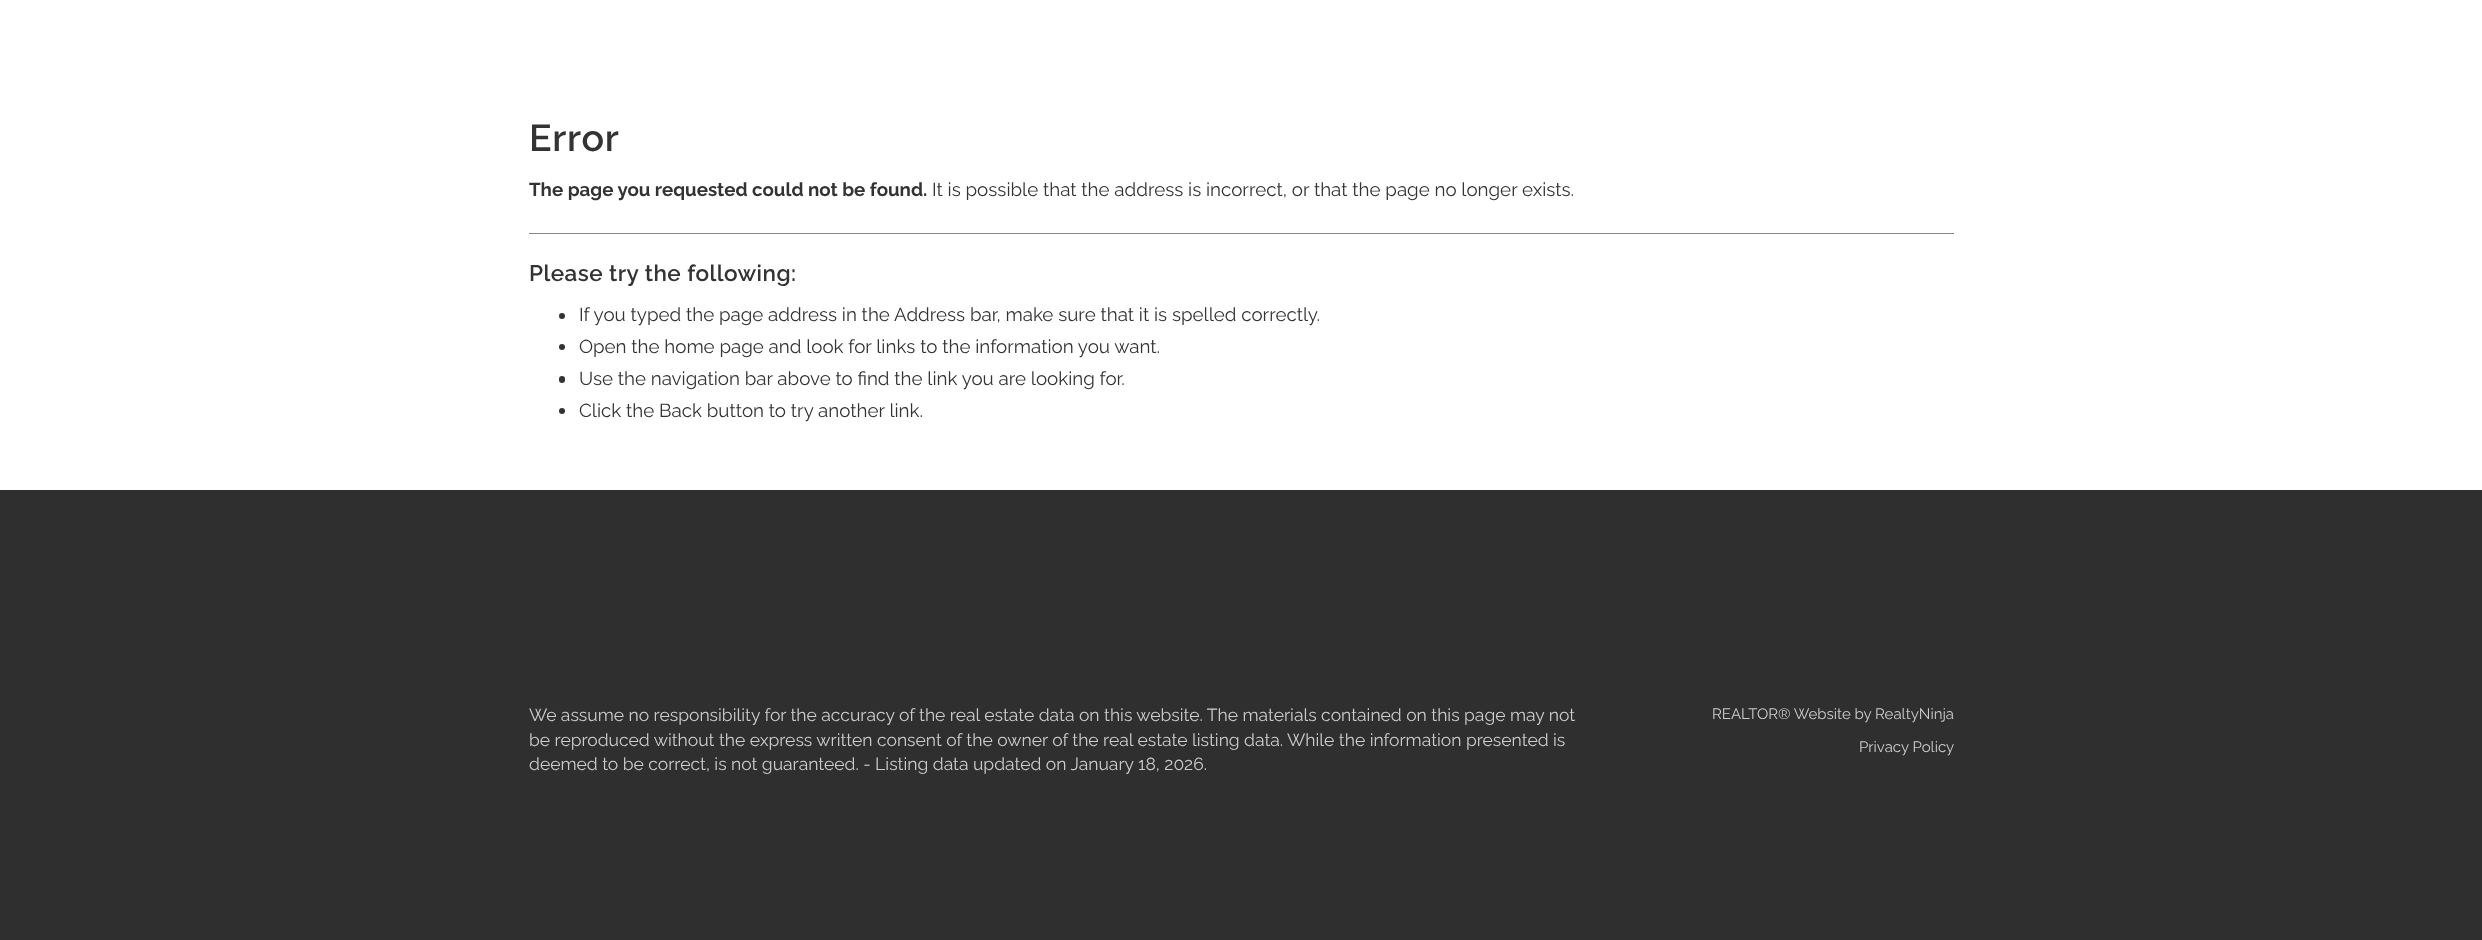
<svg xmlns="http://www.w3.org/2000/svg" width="2482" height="940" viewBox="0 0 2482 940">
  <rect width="100%" height="100%" fill="#ffffff"/>
  <text x="529" y="151" font-family="Raleway" font-size="37.5" font-weight="600" letter-spacing="0.75" fill="#333333">Error</text>
  <text x="529" y="196" font-family="Raleway" font-size="18.75" font-weight="bold" fill="#333333">The page you requested could not be found.</text>
  <text x="932" y="196" font-family="Raleway" font-size="18.75" fill="#333333">It is possible that the address is incorrect, or that the page no longer exists.</text>
  <rect x="529" y="233" width="1425" height="1" fill="#888888"/>
  <text x="529" y="281" font-family="Raleway" font-size="22.5" font-weight="600" letter-spacing="0.45" fill="#333333">Please try the following:</text>
  <circle cx="562" cy="316" r="3" fill="#333333"/>
  <text x="579" y="321" font-family="Raleway" font-size="18.75" fill="#333333">If you typed the page address in the Address bar, make sure that it is spelled correctly.</text>
  <circle cx="562" cy="347" r="3" fill="#333333"/>
  <text x="579" y="353" font-family="Raleway" font-size="18.75" fill="#333333">Open the home page and look for links to the information you want.</text>
  <rect x="559" y="376" width="6" height="7" rx="3" fill="#333333"/>
  <text x="579" y="385" font-family="Raleway" font-size="18.75" fill="#333333">Use the navigation bar above to find the link you are looking for.</text>
  <circle cx="562" cy="411" r="3" fill="#333333"/>
  <text x="579" y="417" font-family="Raleway" font-size="18.75" fill="#333333">Click the Back button to try another link.</text>
  <rect x="0" y="490" width="2482" height="450" fill="#2f2f2f"/>
  <text x="529" y="721" font-family="Raleway" font-size="17.5" fill="#cccccc">We assume no responsibility for the accuracy of the real estate data on this website. The materials contained on this page may not</text>
  <text x="529" y="746" font-family="Raleway" font-size="17.5" fill="#cccccc">be reproduced without the express written consent of the owner of the real estate listing data. While the information presented is</text>
  <text x="529" y="770" font-family="Raleway" font-size="17.5" fill="#cccccc">deemed to be correct, is not guaranteed. - Listing data updated on January 18, 2026.</text>
  <text x="1712" y="719" font-family="Raleway" font-size="15" fill="#cccccc">REALTOR® Website by RealtyNinja</text>
  <text x="1859" y="752" font-family="Raleway" font-size="15" fill="#cccccc">Privacy Policy</text>
</svg>
